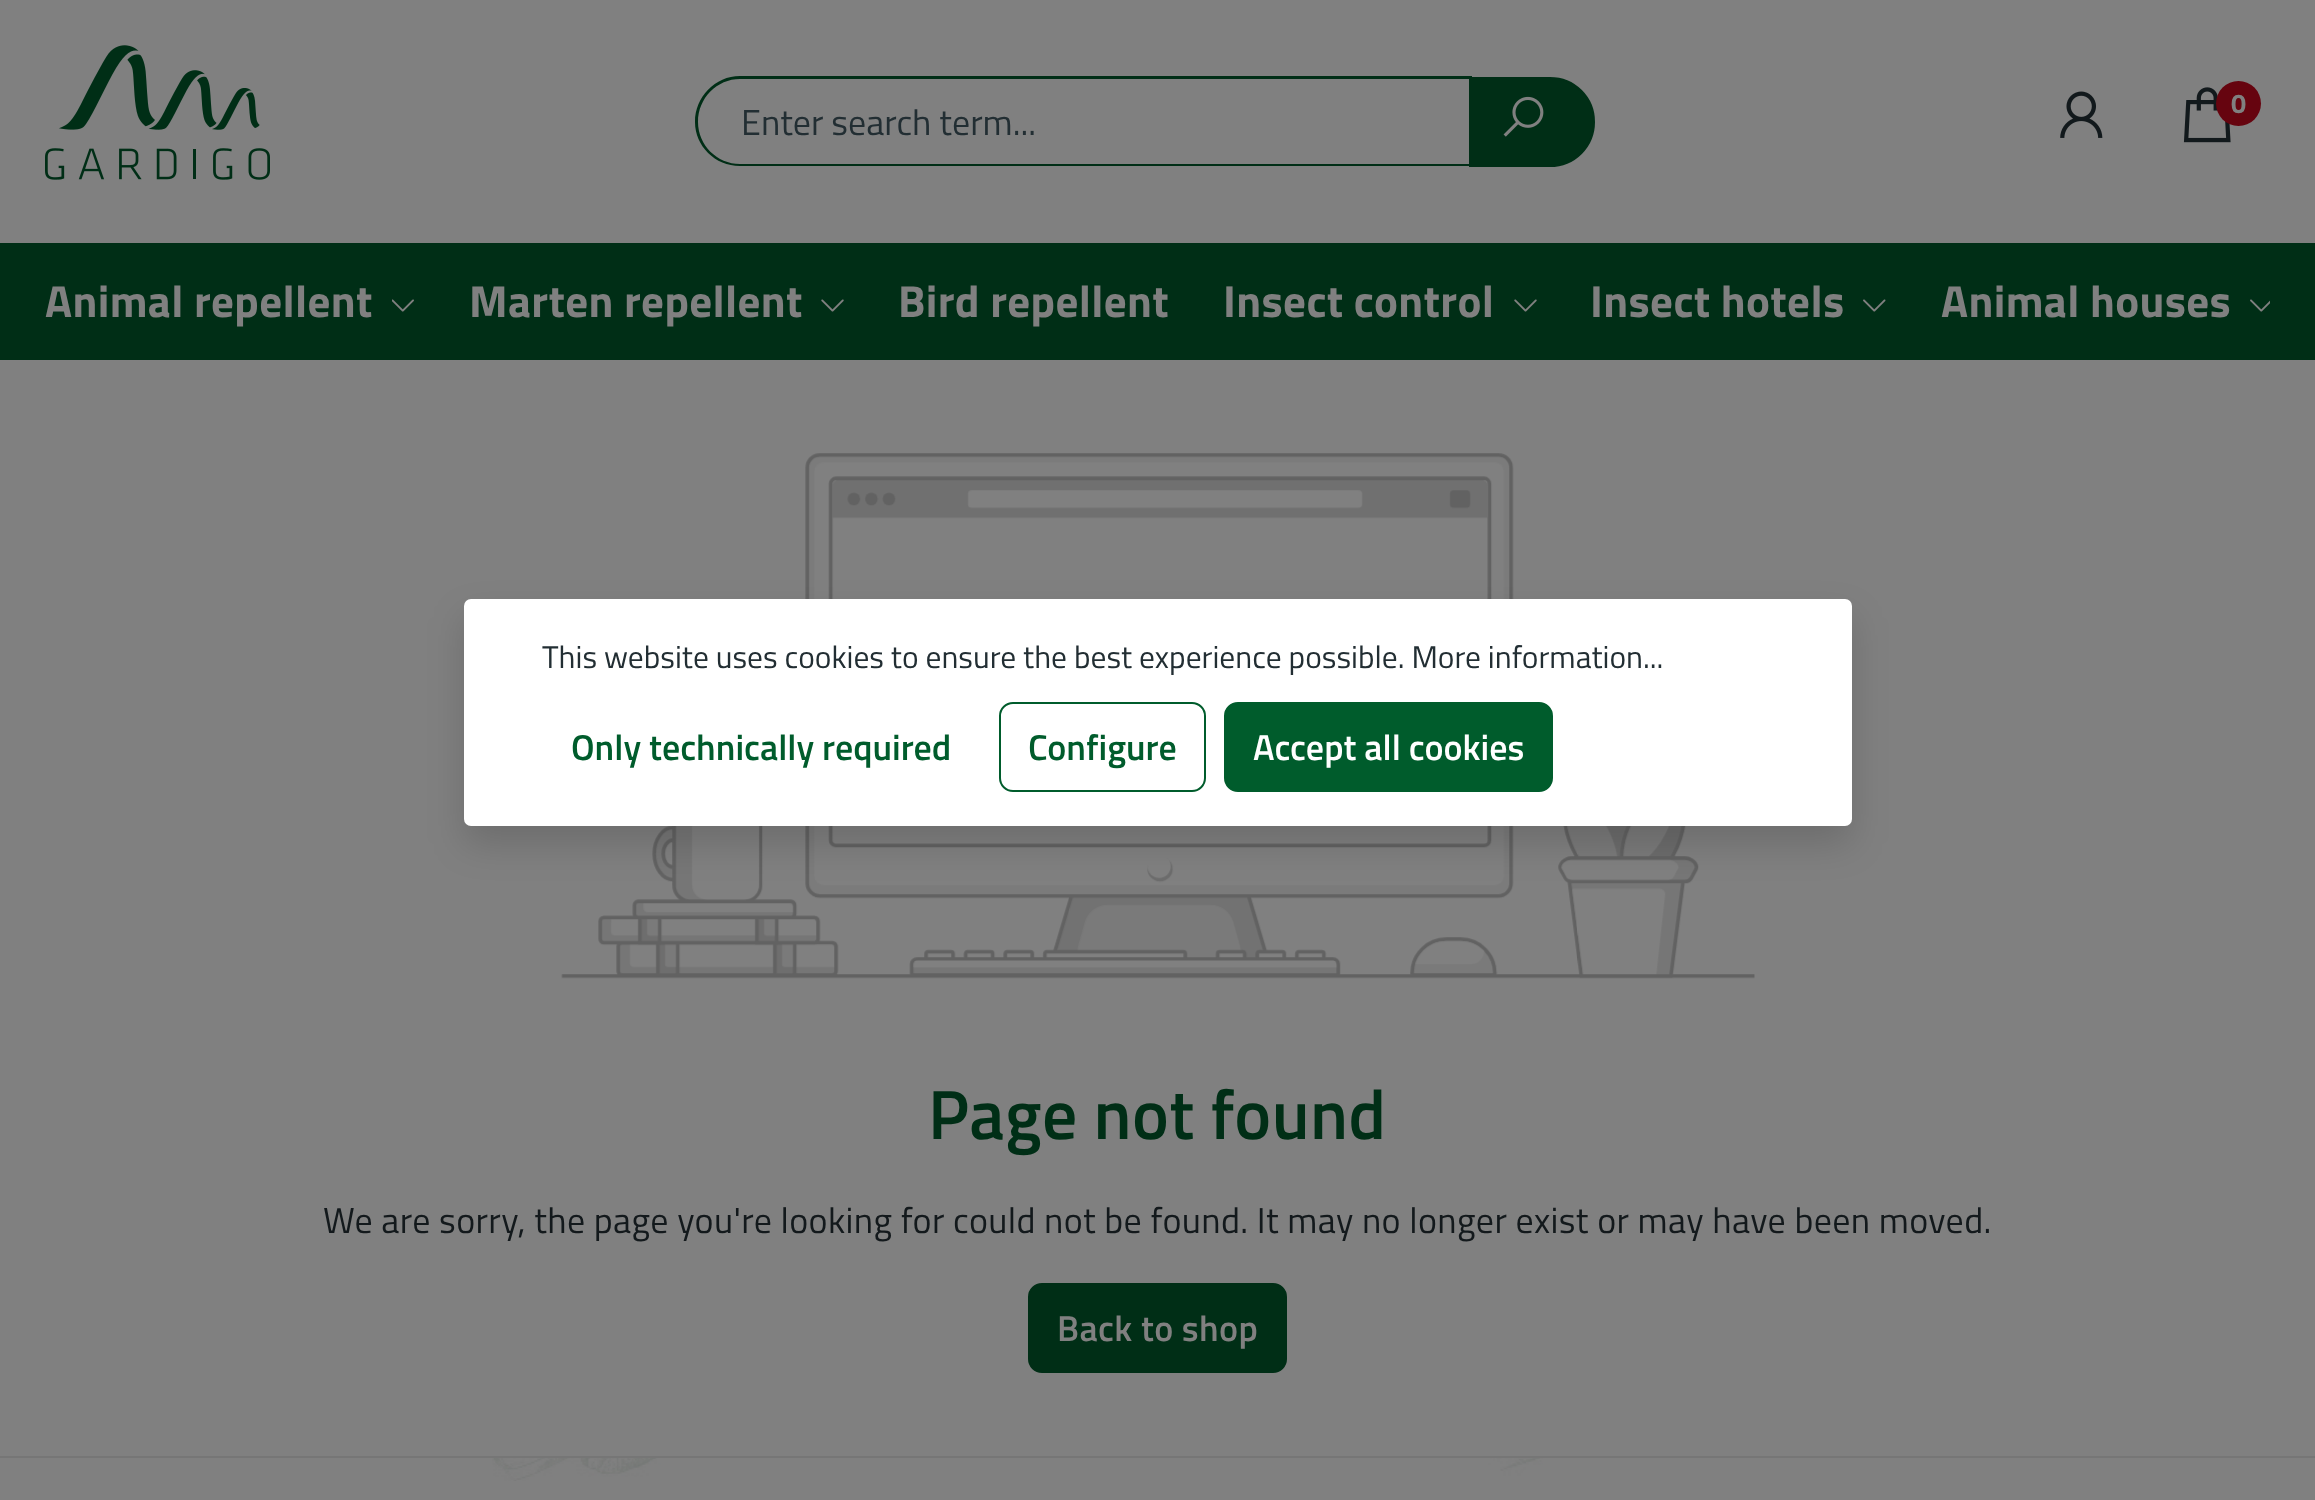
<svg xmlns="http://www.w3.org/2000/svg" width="2315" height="1500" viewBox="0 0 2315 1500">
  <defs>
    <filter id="blur1" x="-50%" y="-200%" width="200%" height="500%"><feGaussianBlur stdDeviation="18"/></filter>
  </defs>
  <rect width="100%" height="100%" fill="#808080"/>
  <image x="45" y="45" width="225" height="135" href="img1.png"/>
  <image x="2060" y="91" width="43" height="47" href="img2.png"/>
  <image x="2183" y="87" width="48" height="56" href="img3.png"/>
  <circle cx="2238.5" cy="103.5" r="22.5" fill="#66040f"/>
  <text x="2231" y="113" font-family="Titillium Web" font-size="27" font-weight="bold" fill="#808080">0</text>
  <path d="M740 76H1472V166H740C715 166 695 146 695 122C695 97 715 76 740 76ZM740 79H1472V164H740C717 164 698 145 698 122C698 98 717 79 740 79Z" fill="#002e16" fill-rule="evenodd"/>
  <text x="741" y="135" font-family="Titillium Web" font-size="36" fill="#222e33">Enter search term...</text>
  <path d="M1470 78H1550C1574.5 78 1594 97.5 1594 122C1594 146.5 1574.5 166 1550 166H1470Z" fill="#002e16" stroke="#002e16" stroke-width="2"/>
  <image x="1503" y="96" width="41" height="41" href="img4.png"/>
  <rect x="0" y="243" width="2315" height="117" fill="#002e16"/>
  <text x="45" y="317" font-family="Titillium Web" font-size="45" font-weight="bold" letter-spacing="0.36" fill="#808080">Animal repellent</text>
  <image x="392" y="299" width="22" height="13" href="img5.png"/>
  <text x="469" y="317" font-family="Titillium Web" font-size="45" font-weight="bold" letter-spacing="0.36" fill="#808080">Marten repellent</text>
  <image x="821" y="299" width="23" height="13" href="img6.png"/>
  <text x="898" y="317" font-family="Titillium Web" font-size="45" font-weight="bold" letter-spacing="0.36" fill="#808080">Bird repellent</text>
  <text x="1223" y="317" font-family="Titillium Web" font-size="45" font-weight="bold" letter-spacing="0.36" fill="#808080">Insect control</text>
  <image x="1514" y="299" width="23" height="13" href="img6.png"/>
  <text x="1590" y="317" font-family="Titillium Web" font-size="45" font-weight="bold" letter-spacing="0.36" fill="#808080">Insect hotels</text>
  <image x="1863" y="299" width="23" height="13" href="img7.png"/>
  <text x="1941" y="317" font-family="Titillium Web" font-size="45" font-weight="bold" letter-spacing="0.36" fill="#808080">Animal houses</text>
  <image x="2250" y="299" width="20" height="13" href="img8.png"/>
  <image x="561" y="453" width="1194" height="526" href="img9.png"/>
  <rect x="464" y="617" width="1388" height="227" rx="7" fill="#000000" fill-opacity="0.15" filter="url(#blur1)"/>
  <rect x="464" y="599" width="1388" height="227" rx="7" fill="#ffffff"/>
  <text x="542" y="668" font-family="Titillium Web" font-size="31.5" fill="#222e33">This website uses cookies to ensure the best experience possible. More information...</text>
  <text x="571" y="760" font-family="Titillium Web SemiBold" font-size="36" font-weight="600" fill="#005c2c">Only technically required</text>
  <rect x="1000" y="703" width="205" height="88" rx="13" fill="none" stroke="#005c2c" stroke-width="2"/>
  <text x="1028" y="760" font-family="Titillium Web SemiBold" font-size="36" font-weight="600" fill="#005c2c">Configure</text>
  <rect x="1225" y="703" width="327" height="88" rx="13" fill="#005c2c" stroke="#005c2c" stroke-width="2"/>
  <text x="1253" y="760" font-family="Titillium Web SemiBold" font-size="36" font-weight="600" fill="#ffffff">Accept all cookies</text>
  <text x="928" y="1139" font-family="Titillium Web SemiBold" font-size="69.75" font-weight="600" letter-spacing="0.36" fill="#002e16">Page not found</text>
  <text x="323" y="1233" font-family="Titillium Web" font-size="36" letter-spacing="0.36" fill="#13191c">We are sorry, the page you're looking for could not be found. It may no longer exist or may have been moved.</text>
  <rect x="1029" y="1284" width="257" height="88" rx="13" fill="#002e16" stroke="#002e16" stroke-width="2"/>
  <text x="1057" y="1341" font-family="Titillium Web SemiBold" font-size="36" font-weight="600" letter-spacing="0.36" fill="#808080">Back to shop</text>
  <image x="492" y="1458" width="1051" height="23" href="img10.png"/>
  <rect x="0" y="1456" width="2315" height="2" fill="#767676"/>
</svg>
